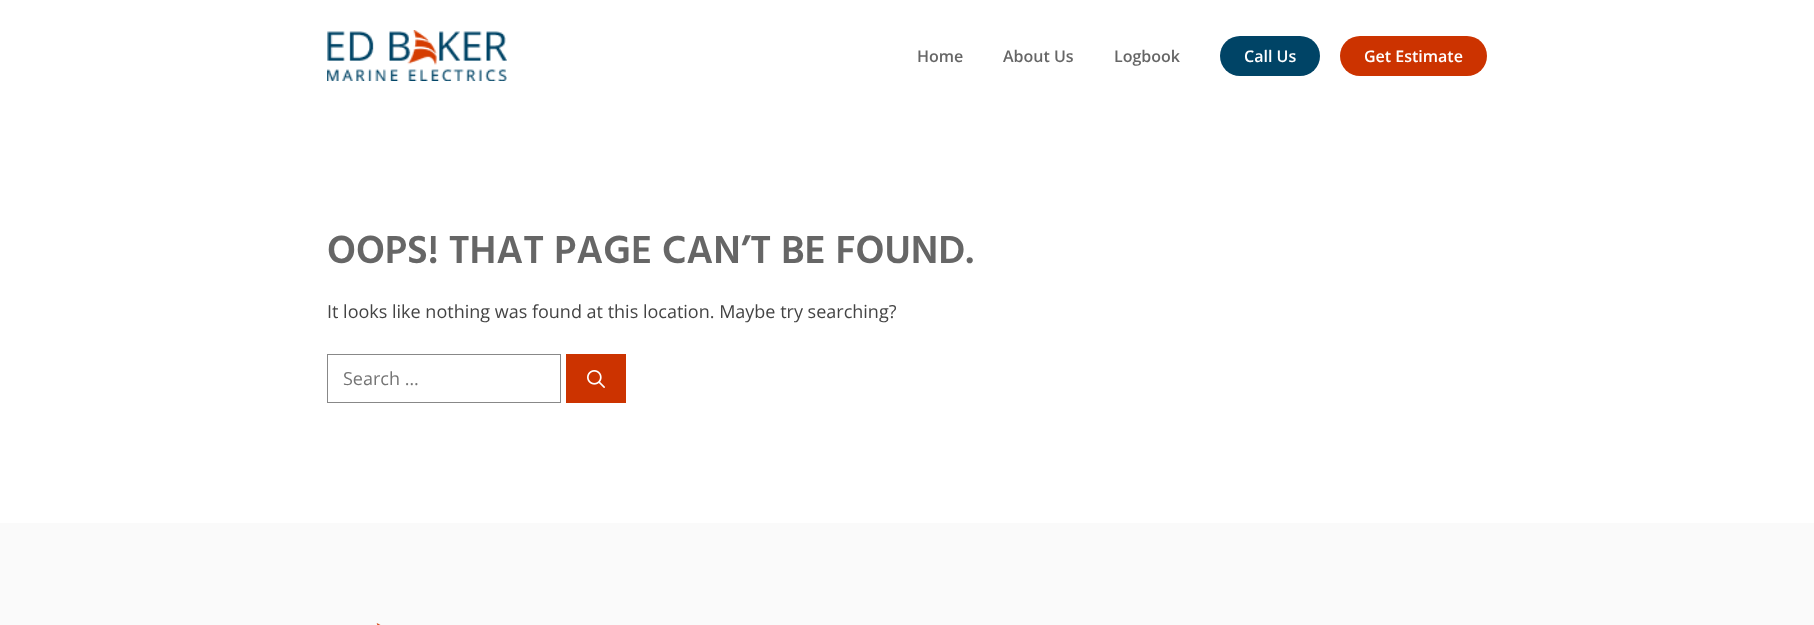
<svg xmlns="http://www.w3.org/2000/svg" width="1814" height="625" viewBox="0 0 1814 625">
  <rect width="100%" height="100%" fill="#ffffff"/>
  <image x="327" y="30" width="180" height="51" href="img1.png"/>
  <text x="917" y="62" font-family="Open Sans" font-size="16" font-weight="600" fill="#666666">Home</text>
  <text x="1003" y="62" font-family="Open Sans" font-size="16" font-weight="600" fill="#666666">About Us</text>
  <text x="1114" y="62" font-family="Open Sans" font-size="16" font-weight="600" fill="#666666">Logbook</text>
  <rect x="1220" y="36" width="100" height="40" rx="20" fill="#004466"/>
  <text x="1244" y="62" font-family="Open Sans" font-size="16" font-weight="600" fill="#ffffff">Call Us</text>
  <rect x="1340" y="36" width="147" height="40" rx="20" fill="#cc3300"/>
  <text x="1364" y="62" font-family="Open Sans" font-size="16" font-weight="600" fill="#ffffff">Get Estimate</text>
  <text x="327" y="263" font-family="Hind" font-size="40" font-weight="600" fill="#666666">OOPS! THAT PAGE CAN’T BE FOUND.</text>
  <text x="327" y="318" font-family="Open Sans" font-size="18" fill="#444444">It looks like nothing was found at this location. Maybe try searching?</text>
  <rect x="327.5" y="354.5" width="233" height="48" fill="none" stroke="#888888"/>
  <text x="343" y="385" font-family="Open Sans" font-size="18" fill="#757575">Search …</text>
  <rect x="566" y="354" width="60" height="49" fill="#cc3300"/>
  <image x="587" y="370" width="18" height="18" href="img2.png"/>
  <rect x="0" y="523" width="1814" height="102" fill="#fafafa"/>
  <image x="376" y="623" width="5" height="2" href="img3.png"/>
</svg>
